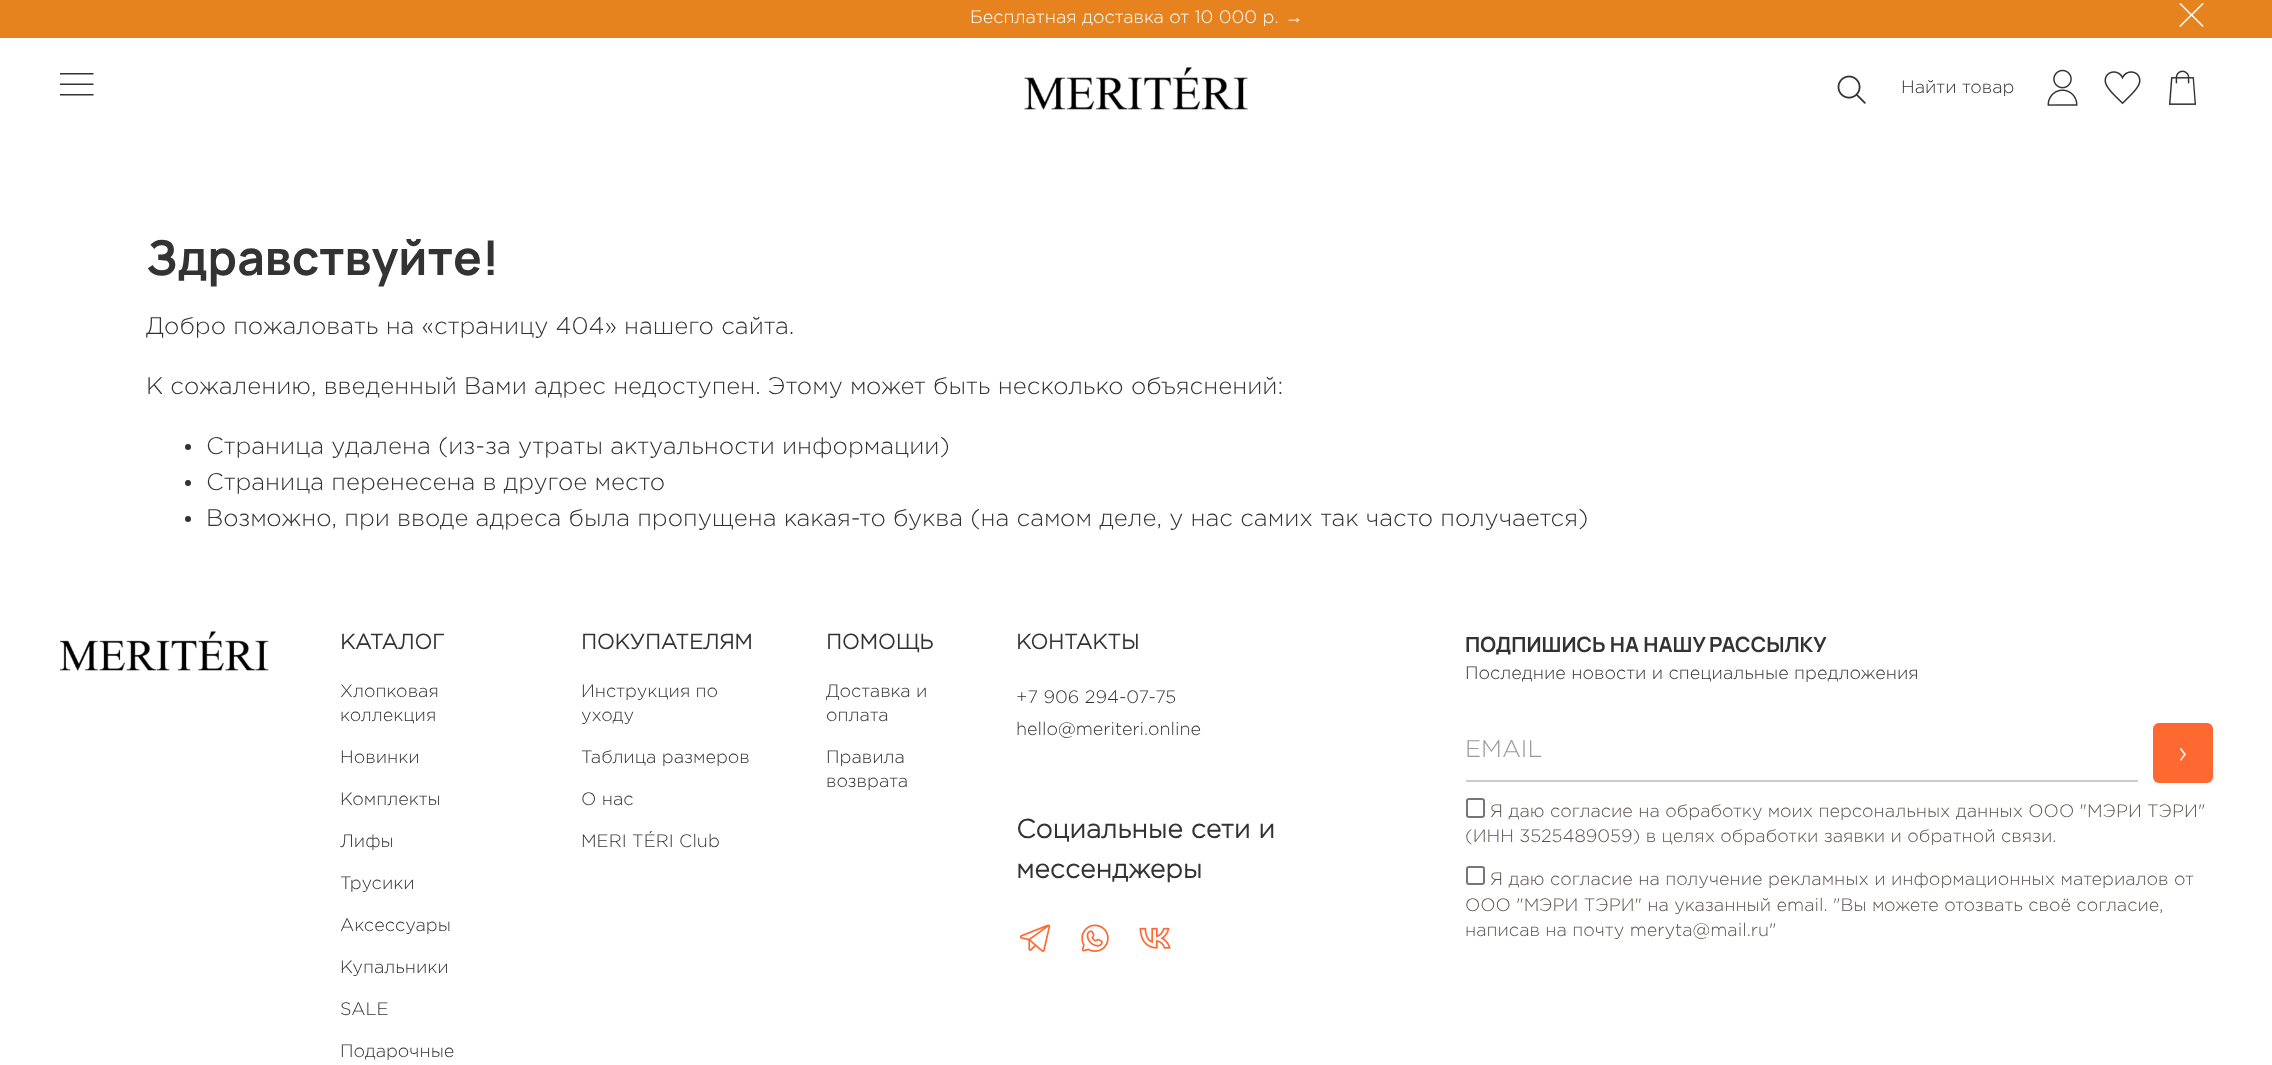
<svg xmlns="http://www.w3.org/2000/svg" width="2272" height="1065" viewBox="0 0 2272 1065">
  <rect width="100%" height="100%" fill="#ffffff"/>
  <rect x="0" y="0" width="2272" height="38" fill="#e6831e"/>
  <text x="970" y="23" font-family="Gotham" font-size="18" font-weight="300" fill="#ffffff">Бесплатная доставка от 10 000 р.</text>
  <text x="1285" y="23" font-family="Liberation Sans" font-size="18" fill="#ffffff">→</text>
  <image x="2179" y="3" width="25" height="24" href="img1.png"/>
  <path d="M60 73H93.5V74.5H60ZM60 94H93.5V95.5H60ZM60 83.5H93.5V85H60Z" fill="#333333"/>
  <image x="1024" y="67" width="224" height="43" href="img2.png"/>
  <image x="1837" y="75" width="29" height="29" href="img3.png"/>
  <text x="1901" y="93" font-family="Gotham" font-size="18" font-weight="300" fill="#333333">Найти товар</text>
  <image x="2047" y="69" width="31" height="37" href="img4.png"/>
  <image x="2104" y="71" width="37" height="34" href="img5.png"/>
  <image x="2168" y="70" width="29" height="35" href="img6.png"/>
  <text x="146" y="275" font-family="Manrope" font-size="48" font-weight="bold" fill="#333333">Здравствуйте!</text>
  <text x="146" y="334" font-family="Gotham" font-size="24" font-weight="300" fill="#333333">Добро пожаловать на «страницу 404» нашего сайта.</text>
  <text x="146" y="394" font-family="Gotham" font-size="24" font-weight="300" fill="#333333">К сожалению, введенный Вами адрес недоступен. Этому может быть несколько объяснений:</text>
  <circle cx="188" cy="447" r="3" fill="#333333"/>
  <text x="206" y="454" font-family="Gotham" font-size="24" font-weight="300" fill="#333333">Страница удалена (из-за утраты актуальности информации)</text>
  <circle cx="188" cy="483" r="3" fill="#333333"/>
  <text x="206" y="490" font-family="Gotham" font-size="24" font-weight="300" fill="#333333">Страница перенесена в другое место</text>
  <circle cx="188" cy="519" r="3" fill="#333333"/>
  <text x="206" y="526" font-family="Gotham" font-size="24" font-weight="300" fill="#333333">Возможно, при вводе адреса была пропущена какая-то буква (на самом деле, у нас самих так часто получается)</text>
  <image x="60" y="631" width="209" height="40" href="img7.png"/>
  <text x="340" y="649" font-family="Gotham" font-size="21" font-weight="bold" fill="#333333">КАТАЛОГ</text>
  <text x="340" y="697" font-family="Gotham" font-size="18" font-weight="300" fill="#333333">Хлопковая</text>
  <text x="340" y="721" font-family="Gotham" font-size="18" font-weight="300" fill="#333333">коллекция</text>
  <text x="340" y="763" font-family="Gotham" font-size="18" font-weight="300" fill="#333333">Новинки</text>
  <text x="340" y="805" font-family="Gotham" font-size="18" font-weight="300" fill="#333333">Комплекты</text>
  <text x="340" y="847" font-family="Gotham" font-size="18" font-weight="300" fill="#333333">Лифы</text>
  <text x="340" y="889" font-family="Gotham" font-size="18" font-weight="300" fill="#333333">Трусики</text>
  <text x="340" y="931" font-family="Gotham" font-size="18" font-weight="300" fill="#333333">Аксессуары</text>
  <text x="340" y="973" font-family="Gotham" font-size="18" font-weight="300" fill="#333333">Купальники</text>
  <text x="340" y="1015" font-family="Gotham" font-size="18" font-weight="300" fill="#333333">SALE</text>
  <text x="340" y="1057" font-family="Gotham" font-size="18" font-weight="300" fill="#333333">Подарочные</text>
  <text x="581" y="649" font-family="Gotham" font-size="21" font-weight="bold" fill="#333333">ПОКУПАТЕЛЯМ</text>
  <text x="581" y="697" font-family="Gotham" font-size="18" font-weight="300" fill="#333333">Инструкция по</text>
  <text x="581" y="721" font-family="Gotham" font-size="18" font-weight="300" fill="#333333">уходу</text>
  <text x="581" y="763" font-family="Gotham" font-size="18" font-weight="300" fill="#333333">Таблица размеров</text>
  <text x="581" y="805" font-family="Gotham" font-size="18" font-weight="300" fill="#333333">О нас</text>
  <text x="581" y="847" font-family="Gotham" font-size="18" font-weight="300" fill="#333333">MERI TÉRI Club</text>
  <text x="826" y="649" font-family="Gotham" font-size="21" font-weight="bold" fill="#333333">ПОМОЩЬ</text>
  <text x="826" y="697" font-family="Gotham" font-size="18" font-weight="300" fill="#333333">Доставка и</text>
  <text x="826" y="721" font-family="Gotham" font-size="18" font-weight="300" fill="#333333">оплата</text>
  <text x="826" y="763" font-family="Gotham" font-size="18" font-weight="300" fill="#333333">Правила</text>
  <text x="826" y="787" font-family="Gotham" font-size="18" font-weight="300" fill="#333333">возврата</text>
  <text x="1016" y="649" font-family="Gotham" font-size="21" font-weight="bold" fill="#333333">КОНТАКТЫ</text>
  <text x="1016" y="703" font-family="Gotham" font-size="18" font-weight="300" fill="#333333">+7 906 294-07-75</text>
  <text x="1016" y="735" font-family="Gotham" font-size="18" font-weight="300" fill="#333333">hello@meriteri.online</text>
  <text x="1016" y="838" font-family="Gotham" font-size="26.5" font-weight="bold" fill="#333333">Социальные сети и</text>
  <text x="1016" y="878" font-family="Gotham" font-size="26.5" font-weight="bold" fill="#333333">мессенджеры</text>
  <image x="1019" y="924" width="32" height="28" href="img8.png"/>
  <image x="1081" y="924" width="28" height="28" href="img9.png"/>
  <image x="1139" y="927" width="32" height="22" href="img10.png"/>
  <text x="1465" y="652" font-family="Manrope" font-size="21" font-weight="bold" fill="#333333">ПОДПИШИСЬ НА НАШУ РАССЫЛКУ</text>
  <text x="1465" y="679" font-family="Gotham" font-size="18" font-weight="300" fill="#333333">Последние новости и специальные предложения</text>
  <rect x="1466" y="780" width="672" height="2" fill="#cccccc"/>
  <text x="1465" y="757" font-family="Gotham" font-size="24" font-weight="300" fill="#999999">EMAIL</text>
  <rect x="2153" y="723" width="60" height="60" rx="6" fill="#fe6831"/>
  <text x="2178" y="762" font-family="Gotham" font-size="30" font-weight="300" fill="#ffffff">›</text>
  <rect x="1467" y="799" width="17" height="18" rx="2" fill="none" stroke="#767676" stroke-width="2"/>
  <text x="1490" y="817" font-family="Gotham" font-size="18" font-weight="300" fill="#59534e">Я даю согласие на обработку моих персональных данных ООО "МЭРИ ТЭРИ"</text>
  <text x="1465" y="842" font-family="Gotham" font-size="18" font-weight="300" fill="#59534e">(ИНН 3525489059) в целях обработки заявки и обратной связи.</text>
  <rect x="1467" y="867" width="17" height="17" rx="2" fill="none" stroke="#767676" stroke-width="2"/>
  <text x="1490" y="885" font-family="Gotham" font-size="18" font-weight="300" fill="#59534e">Я даю согласие на получение рекламных и информационных материалов от</text>
  <text x="1465" y="911" font-family="Gotham" font-size="18" font-weight="300" fill="#59534e">ООО "МЭРИ ТЭРИ" на указанный email. "Вы можете отозвать своё согласие,</text>
  <text x="1465" y="936" font-family="Gotham" font-size="18" font-weight="300" fill="#59534e">написав на почту meryta@mail.ru"</text>
</svg>
